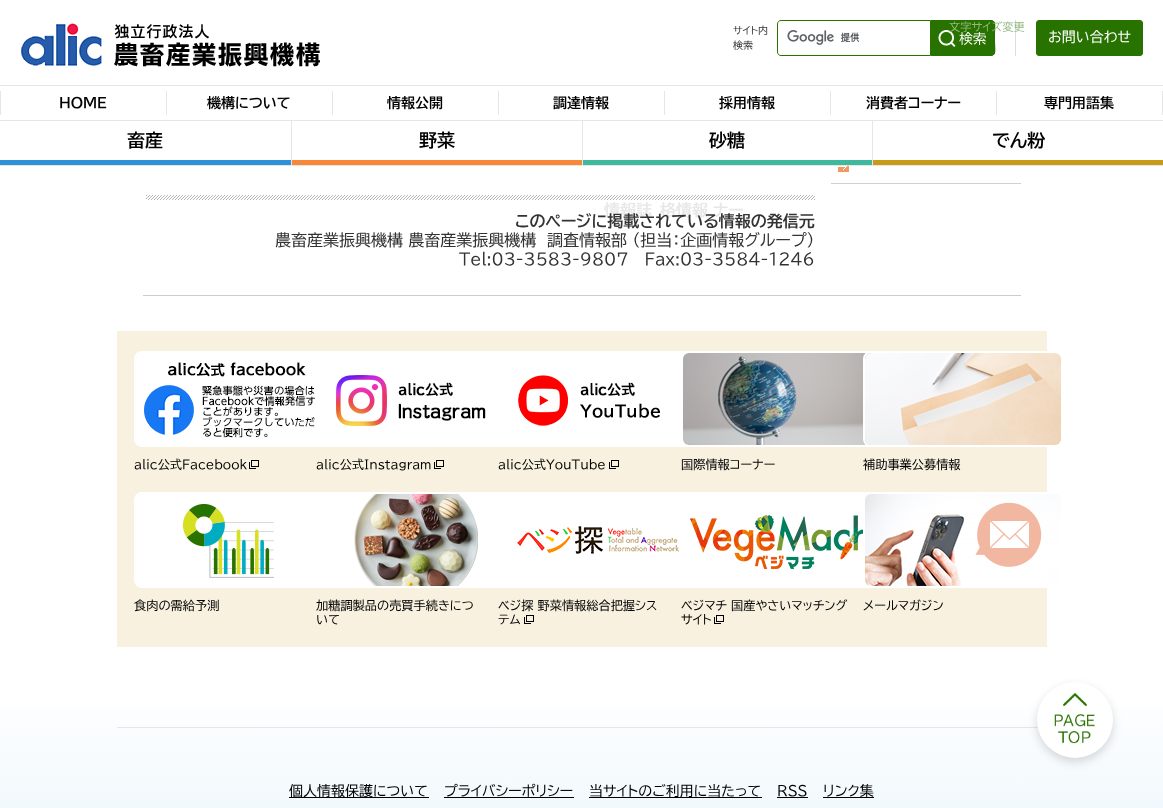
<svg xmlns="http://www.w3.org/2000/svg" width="1163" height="808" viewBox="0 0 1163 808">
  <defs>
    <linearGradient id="g1" gradientUnits="userSpaceOnUse" x1="582" y1="686" x2="582" y2="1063"><stop offset="0" stop-color="#ffffff"/><stop offset="1" stop-color="#d5ebf9"/></linearGradient>
    <filter id="blur1" x="-50%" y="-200%" width="200%" height="500%"><feGaussianBlur stdDeviation="5"/></filter>
  </defs>
  <rect width="100%" height="100%" fill="#ffffff"/>
  <image x="21" y="23" width="299" height="44" href="img1.png"/>
  <path d="M931 20H991C993 20 995 22 995 24V52C995 54 993 56 991 56H931Z" fill="#287200"/>
  <image x="938" y="30" width="48" height="17" href="img3.png"/>
  <path d="M931 20H981C999 20 995 20 995 38C995 56 999 56 981 56H931ZM931 21H981C998 21 994 20 994 38C994 56 998 55 981 55H931Z" fill="#287200" fill-rule="evenodd"/>
  <rect x="1015" y="20" width="1" height="36" fill="#dcdcdc"/>
  <text x="949" y="31" font-family="BIZ UDPGothic" font-size="11.25" fill="#93b87f">文字サイズ変更</text>
  <text x="733" y="34" font-family="BIZ UDPGothic" font-size="10" fill="#333333">サイト内</text>
  <text x="733" y="49" font-family="BIZ UDPGothic" font-size="10" fill="#333333">検索</text>
  <path d="M781 20.5H930.5V55.5H781C779 55.5 777.5 54 777.5 52V24C777.5 22 779 20.5 781 20.5Z" fill="none" stroke="#287200"/>
  <image x="787" y="30" width="73" height="15" href="img2.png"/>
  <rect x="1036.5" y="20.5" width="106" height="35" rx="2.5" fill="#287200" stroke="#287200"/>
  <text x="1048" y="42" font-family="BIZ UDPGothic" font-size="14" fill="#ffffff">お問い合わせ</text>
  <rect x="0" y="85" width="1163" height="1" fill="#e6e6e6"/>
  <rect x="0" y="120" width="1163" height="1" fill="#e6e6e6"/>
  <rect x="0" y="91" width="1" height="24" fill="#e6e6e6"/>
  <text x="59" y="108" font-family="BIZ UDPGothic" font-size="14" font-weight="bold" fill="#000000">HOME</text>
  <rect x="166" y="91" width="1" height="24" fill="#e6e6e6"/>
  <text x="207" y="108" font-family="BIZ UDPGothic" font-size="14" font-weight="bold" fill="#000000">機構について</text>
  <rect x="332" y="91" width="1" height="24" fill="#e6e6e6"/>
  <text x="387" y="108" font-family="BIZ UDPGothic" font-size="14" font-weight="bold" fill="#000000">情報公開</text>
  <rect x="498" y="91" width="1" height="24" fill="#e6e6e6"/>
  <text x="553" y="108" font-family="BIZ UDPGothic" font-size="14" font-weight="bold" fill="#000000">調達情報</text>
  <rect x="664" y="91" width="1" height="24" fill="#e6e6e6"/>
  <text x="719" y="108" font-family="BIZ UDPGothic" font-size="14" font-weight="bold" fill="#000000">採用情報</text>
  <rect x="830" y="91" width="1" height="24" fill="#e6e6e6"/>
  <text x="866" y="108" font-family="BIZ UDPGothic" font-size="14" font-weight="bold" fill="#000000">消費者コーナー</text>
  <rect x="1162" y="91" width="1" height="24" fill="#e6e6e6"/>
  <rect x="996" y="91" width="1" height="24" fill="#e6e6e6"/>
  <text x="1044" y="108" font-family="BIZ UDPGothic" font-size="14" font-weight="bold" fill="#000000">専門用語集</text>
  <rect x="0" y="165" width="1163" height="1" fill="#e6e6e6"/>
  <rect x="0" y="160" width="291" height="5" fill="#2e91da"/>
  <text x="127" y="147" font-family="BIZ UDPGothic" font-size="18" font-weight="bold" fill="#000000">畜産</text>
  <text x="604" y="216" font-family="BIZ UDPGothic" font-size="16" font-weight="bold" fill="#e7e7e7">情報誌</text>
  <rect x="291" y="121" width="1" height="45" fill="#e6e6e6"/>
  <rect x="292" y="160" width="290" height="5" fill="#f88737"/>
  <text x="419" y="147" font-family="BIZ UDPGothic" font-size="18" font-weight="bold" fill="#000000">野菜</text>
  <text x="660" y="216" font-family="BIZ UDPGothic" font-size="16" font-weight="bold" fill="#e7e7e7">格情報</text>
  <rect x="582" y="121" width="1" height="45" fill="#e6e6e6"/>
  <rect x="583" y="160" width="289" height="5" fill="#40b89d"/>
  <text x="709" y="147" font-family="BIZ UDPGothic" font-size="18" font-weight="bold" fill="#000000">砂糖</text>
  <text x="713" y="216" font-family="BIZ UDPGothic" font-size="16" font-weight="bold" fill="#e7e7e7">ナー</text>
  <rect x="872" y="121" width="1" height="45" fill="#e6e6e6"/>
  <rect x="873" y="160" width="290" height="5" fill="#c79a18"/>
  <text x="992" y="147" font-family="BIZ UDPGothic" font-size="18" font-weight="bold" fill="#000000">でん粉</text>
  <rect x="831" y="183" width="190" height="1" fill="#d0d0d0"/>
  <image x="838" y="166" width="11" height="6" href="img4.png"/>
  <image x="146" y="195" width="669" height="5" href="img5.png"/>
  <text x="515" y="227" font-family="BIZ UDPGothic" font-size="16" font-weight="bold" fill="#333333">このページに掲載されている情報の発信元</text>
  <text x="275" y="246" font-family="BIZ UDPGothic" font-size="16" fill="#333333">農畜産業振興機構 農畜産業振興機構　調査情報部 （担当：企画情報グループ）</text>
  <text x="459" y="265" font-family="BIZ UDPGothic" font-size="16" fill="#333333">Tel:03-3583-9807 　Fax:03-3584-1246</text>
  <rect x="143" y="295" width="878" height="1" fill="#cccccc"/>
  <rect x="117" y="331" width="930" height="316" fill="#f8f1df"/>
  <rect x="135" y="352" width="198" height="94" rx="7" fill="none" stroke="#ffffff" stroke-width="2"/>
  <image x="136" y="353" width="188" height="92" href="img6.png"/>
  <text x="134" y="469" font-family="BIZ UDPGothic" font-size="12.2" fill="#000000">alic公式Facebook</text>
  <image x="249" y="460" width="10" height="9" href="img7.png"/>
  <rect x="317" y="352" width="198" height="94" rx="7" fill="none" stroke="#ffffff" stroke-width="2"/>
  <image x="318" y="353" width="191" height="92" href="img8.png"/>
  <text x="316" y="469" font-family="BIZ UDPGothic" font-size="12.2" fill="#000000">alic公式Instagram</text>
  <image x="434" y="460" width="10" height="9" href="img7.png"/>
  <rect x="499" y="352" width="198" height="94" rx="7" fill="none" stroke="#ffffff" stroke-width="2"/>
  <image x="509" y="353" width="180" height="92" href="img9.png"/>
  <text x="498" y="469" font-family="BIZ UDPGothic" font-size="12.2" fill="#000000">alic公式YouTube</text>
  <image x="609" y="460" width="10" height="9" href="img7.png"/>
  <rect x="682" y="352" width="198" height="94" rx="7" fill="none" stroke="#ffffff" stroke-width="2"/>
  <image x="683" y="353" width="188" height="92" href="img10.png"/>
  <text x="681" y="469" font-family="BIZ UDPGothic" font-size="12.2" fill="#000000">国際情報コーナー</text>
  <rect x="864" y="352" width="198" height="94" rx="7" fill="none" stroke="#ffffff" stroke-width="2"/>
  <image x="865" y="353" width="196" height="92" href="img11.png"/>
  <text x="863" y="469" font-family="BIZ UDPGothic" font-size="12.2" fill="#000000">補助事業公募情報</text>
  <rect x="135" y="493" width="198" height="94" rx="7" fill="none" stroke="#ffffff" stroke-width="2"/>
  <image x="136" y="494" width="191" height="92" href="img12.png"/>
  <text x="134" y="610" font-family="BIZ UDPGothic" font-size="12.2" fill="#000000">食肉の需給予測</text>
  <rect x="317" y="493" width="198" height="94" rx="7" fill="none" stroke="#ffffff" stroke-width="2"/>
  <image x="327" y="494" width="182" height="92" href="img13.png"/>
  <text x="316" y="610" font-family="BIZ UDPGothic" font-size="12.2" fill="#000000">加糖調製品の売買手続きにつ</text>
  <text x="316" y="624" font-family="BIZ UDPGothic" font-size="12.2" fill="#000000">いて</text>
  <rect x="499" y="493" width="198" height="94" rx="7" fill="none" stroke="#ffffff" stroke-width="2"/>
  <image x="509" y="494" width="181" height="92" href="img14.png"/>
  <text x="498" y="610" font-family="BIZ UDPGothic" font-size="12.2" fill="#000000">ベジ探 野菜情報総合把握シス</text>
  <text x="498" y="624" font-family="BIZ UDPGothic" font-size="12.2" fill="#000000">テム</text>
  <image x="524" y="615" width="10" height="9" href="img7.png"/>
  <rect x="682" y="493" width="198" height="94" rx="7" fill="none" stroke="#ffffff" stroke-width="2"/>
  <image x="690" y="494" width="181" height="92" href="img15.png"/>
  <text x="681" y="610" font-family="BIZ UDPGothic" font-size="12.2" fill="#000000">ベジマチ 国産やさいマッチング</text>
  <text x="681" y="624" font-family="BIZ UDPGothic" font-size="12.2" fill="#000000">サイト</text>
  <image x="714" y="615" width="10" height="9" href="img7.png"/>
  <rect x="864" y="493" width="198" height="94" rx="7" fill="none" stroke="#ffffff" stroke-width="2"/>
  <image x="865" y="494" width="196" height="92" href="img16.png"/>
  <text x="863" y="610" font-family="BIZ UDPGothic" font-size="12.2" fill="#000000">メールマガジン</text>
  <rect x="0" y="708" width="1163" height="100" fill="url(#g1)"/>
  <rect x="117" y="727" width="921" height="1" fill="#e6e6e6"/>
  <rect x="1037" y="686" width="76" height="76" rx="38" fill="#000000" fill-opacity="0.15" filter="url(#blur1)"/>
  <circle cx="1075" cy="720" r="38" fill="#ffffff"/>
  <image x="1054" y="693" width="41" height="51" href="img17.png"/>
  <rect x="289" y="797" width="140" height="1" fill="#000000"/>
  <text x="289" y="796" font-family="BIZ UDPGothic" font-size="14" fill="#000000">個人情報保護について</text>
  <text x="444" y="796" font-family="BIZ UDPGothic" font-size="14" fill="#000000">プライバシーポリシー</text>
  <rect x="444" y="797" width="130" height="1" fill="#000000"/>
  <rect x="589" y="797" width="173" height="1" fill="#000000"/>
  <text x="589" y="796" font-family="BIZ UDPGothic" font-size="14" fill="#000000">当サイトのご利用に当たって</text>
  <text x="777" y="796" font-family="BIZ UDPGothic" font-size="14" fill="#000000">RSS</text>
  <rect x="777" y="797" width="31" height="1" fill="#000000"/>
  <rect x="823" y="797" width="51" height="1" fill="#000000"/>
  <text x="823" y="796" font-family="BIZ UDPGothic" font-size="14" fill="#000000">リンク集</text>
</svg>
